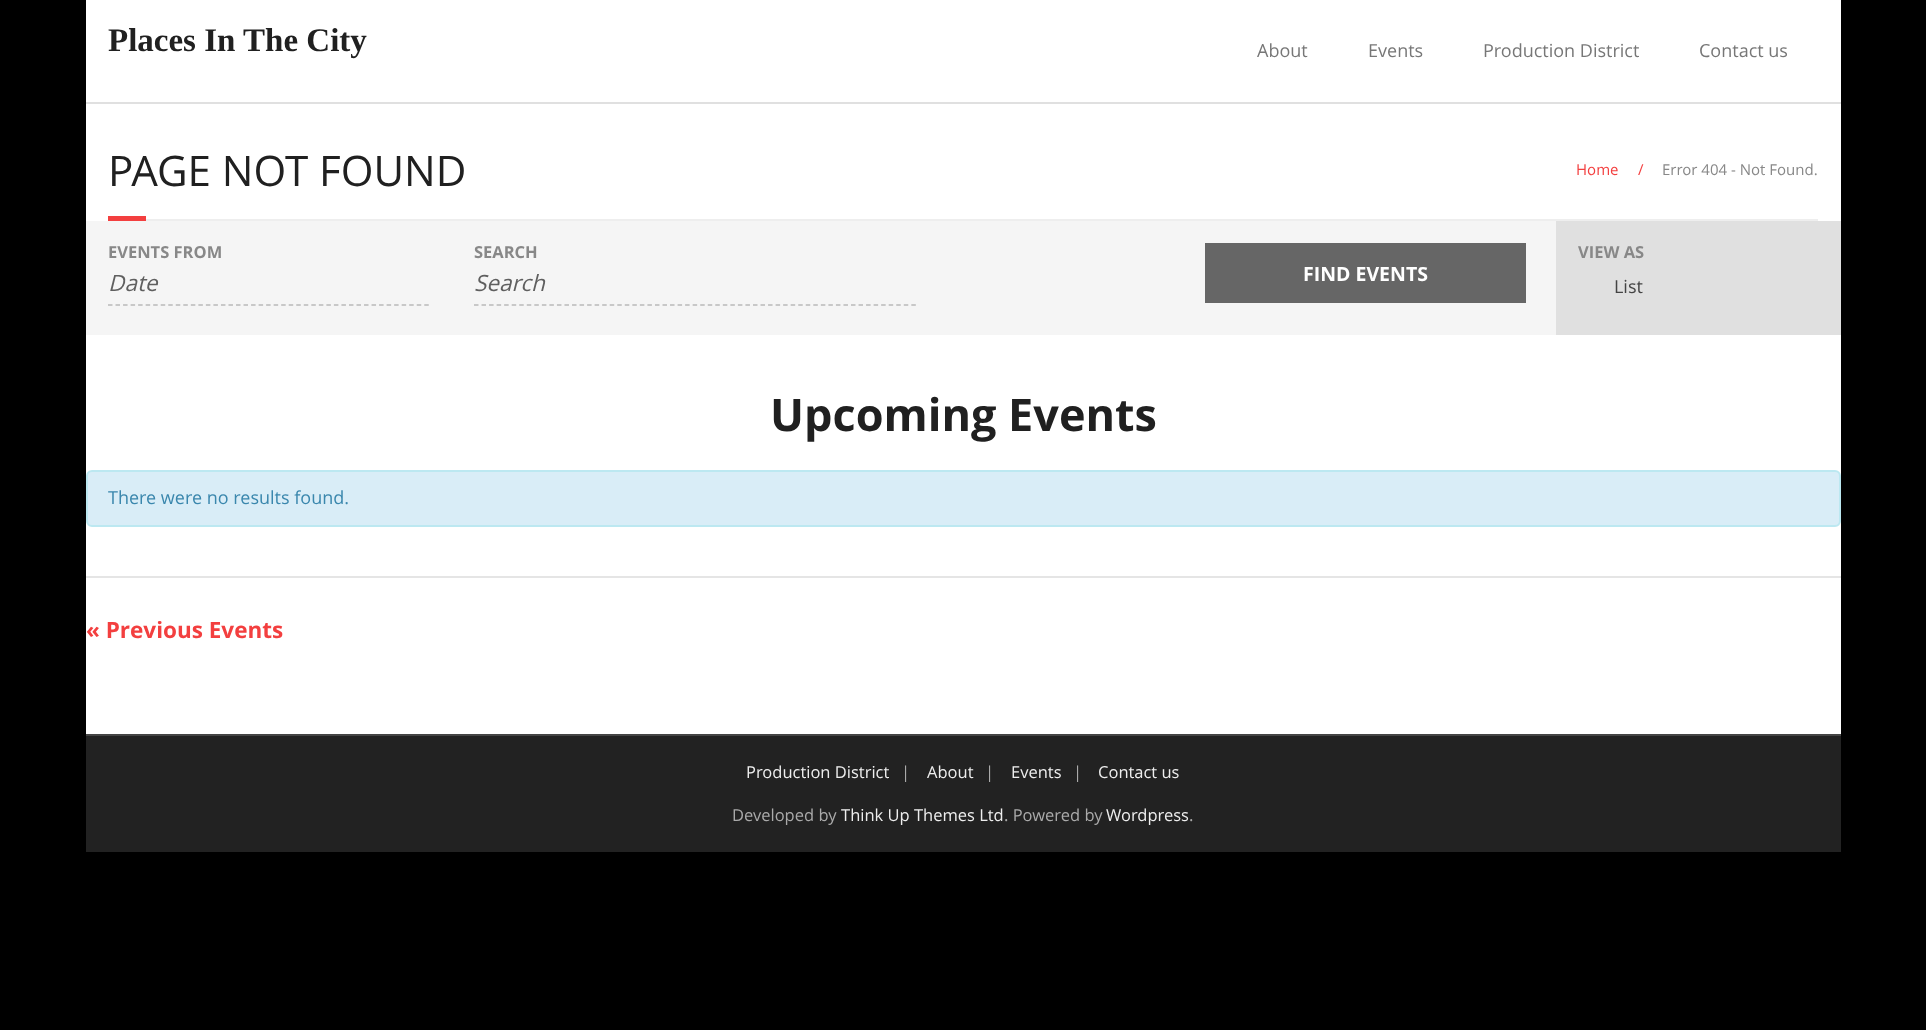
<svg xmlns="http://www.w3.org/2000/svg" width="1926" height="1030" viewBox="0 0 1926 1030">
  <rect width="100%" height="100%" fill="#000000"/>
  <rect x="86" y="0" width="1755" height="734" fill="#ffffff"/>
  <rect x="86" y="102" width="1755" height="2" fill="#e0e0e0"/>
  <text x="108" y="51" font-family="Liberation Serif" font-size="33" font-weight="bold" fill="#202020">Places In The City</text>
  <text x="1257" y="57" font-family="Open Sans" font-size="18" fill="#777777">About</text>
  <text x="1368" y="57" font-family="Open Sans" font-size="18" fill="#777777">Events</text>
  <text x="1483" y="57" font-family="Open Sans" font-size="18" fill="#777777">Production District</text>
  <text x="1699" y="57" font-family="Open Sans" font-size="18" fill="#777777">Contact us</text>
  <text x="108" y="186" font-family="Open Sans" font-size="42" fill="#202020">PAGE NOT FOUND</text>
  <text x="1576" y="175" font-family="Open Sans" font-size="15" fill="#f33f3f">Home</text>
  <text x="1638" y="175" font-family="Open Sans" font-size="15" fill="#f33f3f">/</text>
  <text x="1662" y="175" font-family="Open Sans" font-size="15" fill="#888888">Error 404 - Not Found.</text>
  <rect x="108" y="216" width="38" height="5" fill="#f33f3f"/>
  <rect x="146" y="219" width="1672" height="2" fill="#eeeeee"/>
  <rect x="86" y="221" width="1470" height="114" fill="#f5f5f5"/>
  <text x="108" y="258" font-family="Open Sans" font-size="16.5" font-weight="bold" fill="#888888">EVENTS FROM</text>
  <path d="M108 305H429" fill="none" stroke="#b9b9b9" stroke-width="1.5" stroke-dasharray="4.5 3.03"/>
  <text x="108" y="291" font-family="Open Sans" font-size="22.5" font-style="italic" fill="#5f5f5f">Date</text>
  <text x="474" y="258" font-family="Open Sans" font-size="16.5" font-weight="bold" fill="#888888">SEARCH</text>
  <path d="M474 305H916.5" fill="none" stroke="#b9b9b9" stroke-width="1.5" stroke-dasharray="4.5 3.04"/>
  <text x="474" y="291" font-family="Open Sans" font-size="22.5" font-style="italic" fill="#5f5f5f">Search</text>
  <rect x="1205" y="243" width="321" height="60" fill="#666666"/>
  <text x="1303" y="281" font-family="Open Sans" font-size="19.5" font-weight="bold" fill="#ffffff">FIND EVENTS</text>
  <rect x="1556" y="221" width="285" height="114" fill="#e0e0e0"/>
  <text x="1578" y="258" font-family="Open Sans" font-size="16.5" font-weight="bold" fill="#888888">VIEW AS</text>
  <text x="1614" y="293" font-family="Open Sans" font-size="18" fill="#444444">List</text>
  <text x="770" y="431" font-family="Open Sans" font-size="45" font-weight="bold" fill="#202020">Upcoming Events</text>
  <rect x="87" y="471" width="1753" height="55" rx="5" fill="#d9edf7" stroke="#bce8f1" stroke-width="2"/>
  <text x="108" y="504" font-family="Open Sans" font-size="18" fill="#3a87ad">There were no results found.</text>
  <rect x="86" y="576" width="1755" height="2" fill="#e5e5e5"/>
  <text x="86" y="638" font-family="Open Sans" font-size="22.5" font-weight="bold" fill="#f33f3f">« Previous Events</text>
  <rect x="86" y="736" width="1755" height="116" fill="#222222"/>
  <rect x="86" y="734" width="1755" height="2" fill="#444444"/>
  <text x="746" y="778" font-family="Open Sans" font-size="16.5" fill="#eeeeee">Production District</text>
  <text x="901" y="778" font-family="Open Sans" font-size="16.5" fill="#aaaaaa">|</text>
  <text x="927" y="778" font-family="Open Sans" font-size="16.5" fill="#eeeeee">About</text>
  <text x="985" y="778" font-family="Open Sans" font-size="16.5" fill="#aaaaaa">|</text>
  <text x="1011" y="778" font-family="Open Sans" font-size="16.5" fill="#eeeeee">Events</text>
  <text x="1073" y="778" font-family="Open Sans" font-size="16.5" fill="#aaaaaa">|</text>
  <text x="1098" y="778" font-family="Open Sans" font-size="16.5" fill="#eeeeee">Contact us</text>
  <text x="732" y="821" font-family="Open Sans" font-size="16.5" fill="#aaaaaa">Developed by</text>
  <text x="841" y="821" font-family="Open Sans" font-size="16.5" fill="#eeeeee">Think Up Themes Ltd</text>
  <text x="1004" y="821" font-family="Open Sans" font-size="16.5" fill="#aaaaaa">. Powered by</text>
  <text x="1106" y="821" font-family="Open Sans" font-size="16.5" fill="#eeeeee">Wordpress</text>
  <text x="1189" y="821" font-family="Open Sans" font-size="16.5" fill="#aaaaaa">.</text>
</svg>
